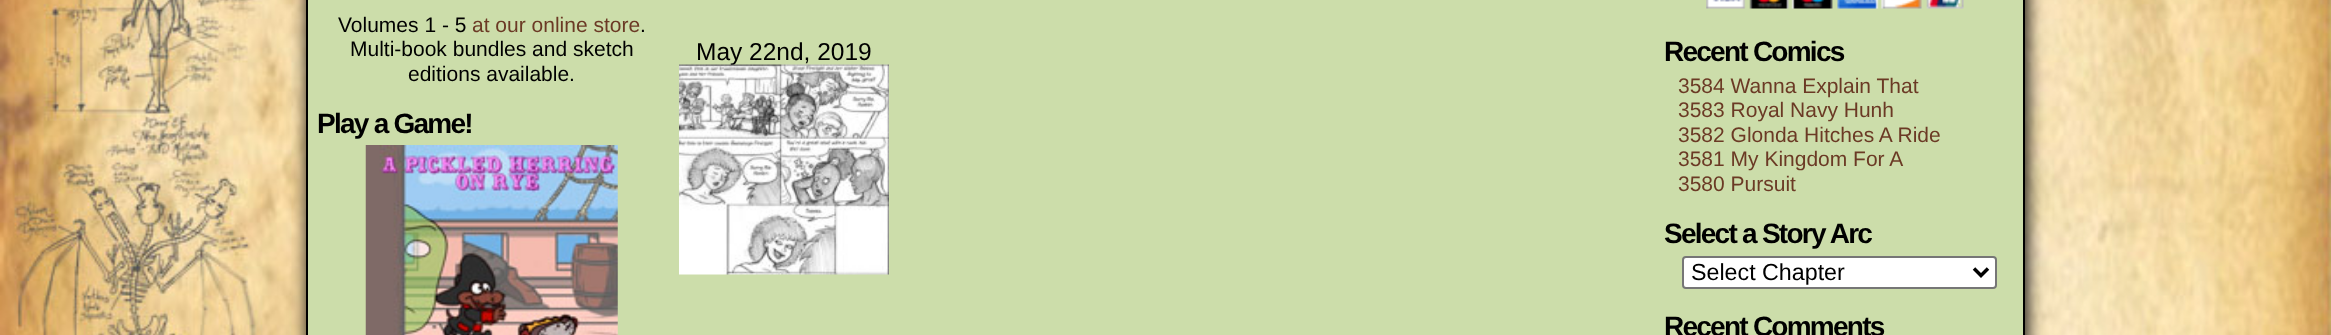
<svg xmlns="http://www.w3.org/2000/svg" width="2331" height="335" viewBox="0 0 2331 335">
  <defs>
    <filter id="blur1" x="-50%" y="-200%" width="200%" height="500%"><feGaussianBlur stdDeviation="9"/></filter>
  </defs>
  <rect width="100%" height="100%" fill="#ffffff"/>
  <image x="0" y="0" width="2331" height="335" href="img1.png"/>
  <rect x="308" y="-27" width="1719" height="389" fill="#000000" filter="url(#blur1)"/>
  <rect x="307" y="-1" width="1717" height="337" fill="#ccddaa" stroke="#000000" stroke-width="2"/>
  <text x="338" y="32" font-family="Liberation Sans" font-size="21" fill="#000000">Volumes 1 - 5</text>
  <text x="472" y="32" font-family="Liberation Sans" font-size="21" fill="#6b3a25">at our online store</text>
  <text x="640" y="32" font-family="Liberation Sans" font-size="21" fill="#000000">.</text>
  <text x="350" y="56" font-family="Liberation Sans" font-size="21" fill="#000000">Multi-book bundles and sketch</text>
  <text x="408" y="81" font-family="Liberation Sans" font-size="21" fill="#000000">editions available.</text>
  <text x="317" y="133" font-family="Liberation Sans" font-size="28" font-weight="bold" letter-spacing="-1.75" fill="#000000">Play a Game!</text>
  <image x="365" y="145" width="253" height="190" href="img2.png"/>
  <text x="696" y="60" font-family="Liberation Sans" font-size="24.5" fill="#000000">May 22nd, 2019</text>
  <image x="679" y="64" width="210" height="211" href="img3.png"/>
  <image x="1706" y="0" width="258" height="9" href="img4.png"/>
  <text x="1664" y="61" font-family="Liberation Sans" font-size="28" font-weight="bold" letter-spacing="-1.75" fill="#000000">Recent Comics</text>
  <text x="1678" y="93" font-family="Liberation Sans" font-size="21" fill="#6b3a25">3584 Wanna Explain That</text>
  <text x="1678" y="117" font-family="Liberation Sans" font-size="21" fill="#6b3a25">3583 Royal Navy Hunh</text>
  <text x="1678" y="142" font-family="Liberation Sans" font-size="21" fill="#6b3a25">3582 Glonda Hitches A Ride</text>
  <text x="1678" y="166" font-family="Liberation Sans" font-size="21" fill="#6b3a25">3581 My Kingdom For A</text>
  <text x="1678" y="191" font-family="Liberation Sans" font-size="21" fill="#6b3a25">3580 Pursuit</text>
  <text x="1664" y="243" font-family="Liberation Sans" font-size="28" font-weight="bold" letter-spacing="-1.75" fill="#000000">Select a Story Arc</text>
  <rect x="1683" y="257" width="313" height="31" rx="3" fill="#ffffff" stroke="#767676" stroke-width="2"/>
  <path d="M1974 268.5L1981 275.5L1988 268.5" fill="none" stroke="#000000" stroke-width="3.5"/>
  <text x="1691" y="280" font-family="Liberation Sans" font-size="23.25" fill="#000000">Select Chapter</text>
  <text x="1664" y="336" font-family="Liberation Sans" font-size="28" font-weight="bold" letter-spacing="-1.75" fill="#000000">Recent Comments</text>
</svg>
